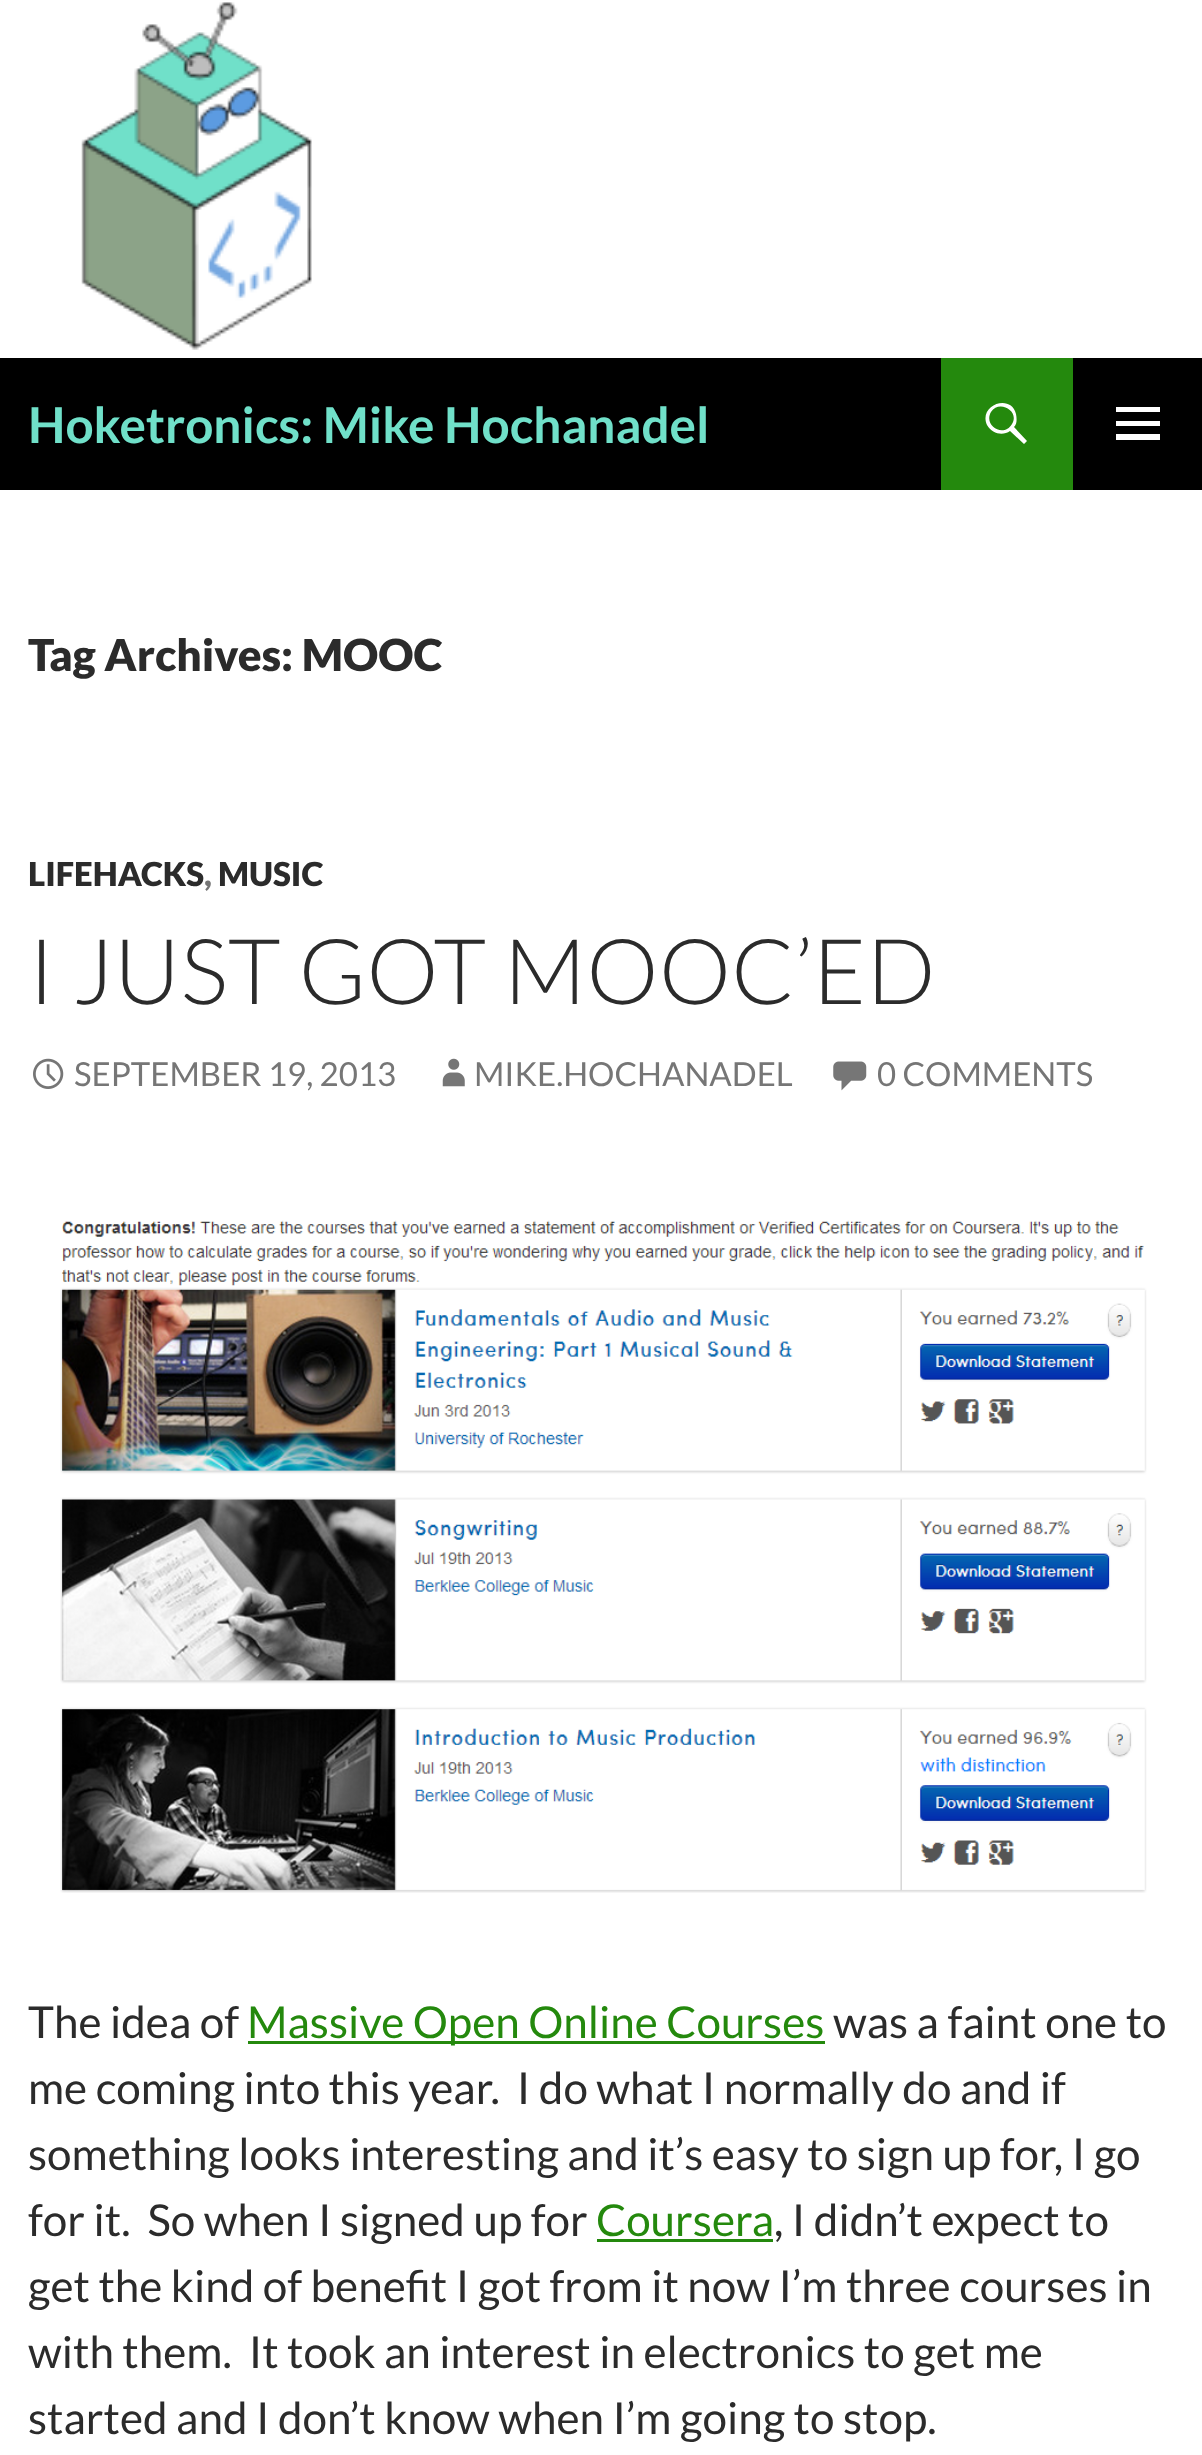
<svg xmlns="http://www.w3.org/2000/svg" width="1202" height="2455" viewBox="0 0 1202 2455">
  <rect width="100%" height="100%" fill="#ffffff"/>
  <image x="81" y="2" width="231" height="348" href="img1.png"/>
  <rect x="0" y="358" width="1202" height="132" fill="#000000"/>
  <text x="28" y="443" font-family="Lato" font-size="49.5" font-weight="bold" fill="#70e0c9">Hoketronics: Mike Hochanadel</text>
  <rect x="941" y="358" width="132" height="132" fill="#24890d"/>
  <path d="M1027 441L1024 444L1010 431C1003 436 992 434 987 425C978 405 1011 393 1016 414C1017 419 1017 424 1014 427ZM991 412C983 426 1004 438 1012 424C1020 411 999 399 991 412Z" fill="#ffffff"/>
  <path d="M1116 440V434H1160V440ZM1116 407H1160V412H1116ZM1116 426V421H1160V426Z" fill="#ffffff"/>
  <text x="28" y="671" font-family="Lato" font-size="44" font-weight="900" fill="#2b2b2b">Tag Archives: MOOC</text>
  <text x="28" y="886" font-family="Lato" font-size="33" font-weight="900" fill="#2b2b2b">LIFEHACKS</text>
  <text x="204" y="886" font-family="Lato" font-size="33" font-weight="900" fill="#767676">,</text>
  <text x="218" y="886" font-family="Lato" font-size="33" font-weight="900" fill="#2b2b2b">MUSIC</text>
  <text x="28" y="1004" font-family="Lato" font-size="90.75" font-weight="300" fill="#2b2b2b">I JUST GOT MOOC’ED</text>
  <image x="33" y="1058" width="31" height="31" href="img2.png"/>
  <text x="74" y="1086" font-family="Lato" font-size="33" fill="#767676">SEPTEMBER 19, 2013</text>
  <image x="442" y="1058" width="23" height="29" href="img3.png"/>
  <text x="474" y="1086" font-family="Lato" font-size="33" fill="#767676">MIKE.HOCHANADEL</text>
  <image x="833" y="1061" width="34" height="30" href="img4.png"/>
  <text x="877" y="1086" font-family="Lato" font-size="33" fill="#767676">0 COMMENTS</text>
  <image x="60" y="1220" width="1087" height="673" href="img5.png"/>
  <text x="28" y="2038" font-family="Lato" font-size="44" fill="#2b2b2b">The idea of</text>
  <rect x="248" y="2041" width="577" height="3" fill="#24890d"/>
  <text x="247" y="2038" font-family="Lato" font-size="44" fill="#24890d">Massive Open Online Courses</text>
  <text x="833" y="2038" font-family="Lato" font-size="44" fill="#2b2b2b">was a faint one to</text>
  <text x="28" y="2104" font-family="Lato" font-size="44" fill="#2b2b2b" xml:space="preserve">me coming into this year.  I do what I normally do and if</text>
  <text x="28" y="2170" font-family="Lato" font-size="44" fill="#2b2b2b">something looks interesting and it’s easy to sign up for, I go</text>
  <text x="28" y="2236" font-family="Lato" font-size="44" fill="#2b2b2b" xml:space="preserve">for it.  So when I signed up for</text>
  <text x="596" y="2236" font-family="Lato" font-size="44" fill="#24890d">Coursera</text>
  <rect x="597" y="2239" width="176" height="3" fill="#24890d"/>
  <text x="774" y="2236" font-family="Lato" font-size="44" fill="#2b2b2b">, I didn’t expect to</text>
  <text x="28" y="2302" font-family="Lato" font-size="44" fill="#2b2b2b">get the kind of benefit I got from it now I’m three courses in</text>
  <text x="28" y="2368" font-family="Lato" font-size="44" fill="#2b2b2b" xml:space="preserve">with them.  It took an interest in electronics to get me</text>
  <text x="28" y="2434" font-family="Lato" font-size="44" fill="#2b2b2b">started and I don’t know when I’m going to stop.</text>
</svg>
